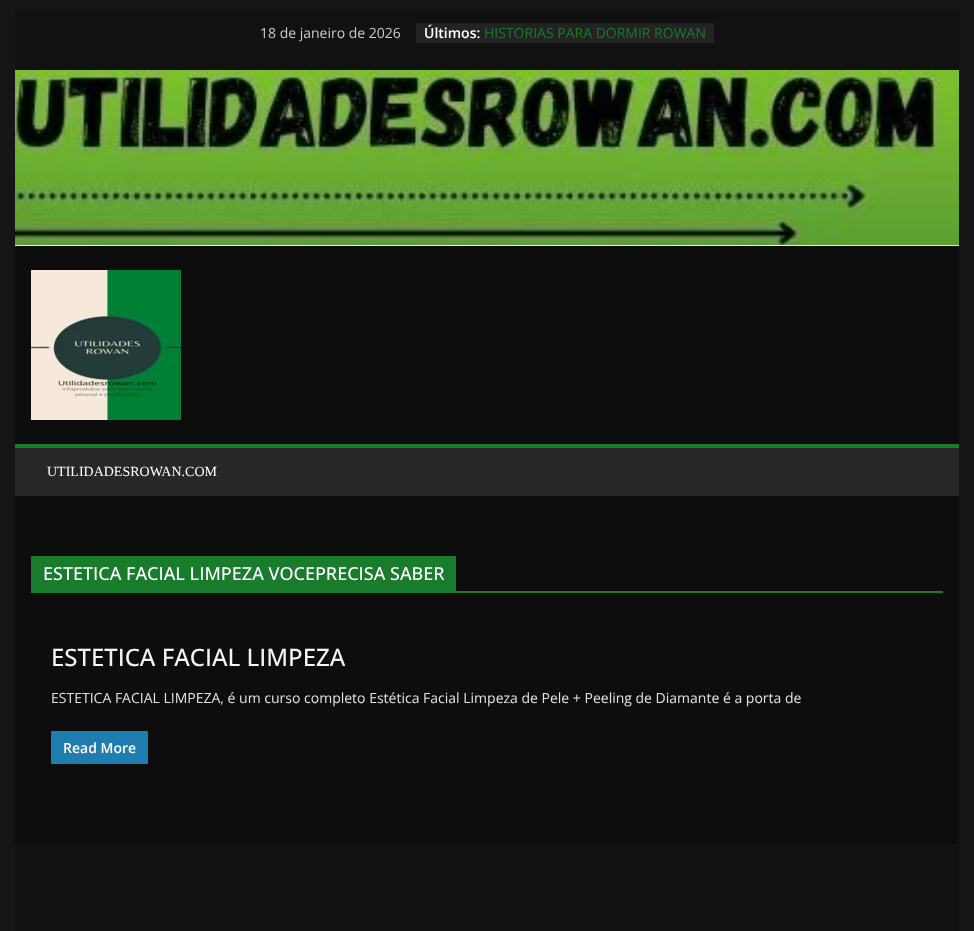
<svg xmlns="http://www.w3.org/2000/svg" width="974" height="931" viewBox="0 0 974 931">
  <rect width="100%" height="100%" fill="#151515"/>
  <rect x="15" y="496" width="944" height="348" fill="#0d0d0d"/>
  <rect x="15" y="10" width="944" height="60" fill="#111111"/>
  <text x="260" y="38" font-family="Open Sans" font-size="14" fill="#cccccc">18 de janeiro de 2026</text>
  <rect x="416" y="23" width="298" height="20" fill="#232323"/>
  <text x="424" y="38" font-family="Open Sans" font-size="14" font-weight="600" fill="#ffffff">Últimos:</text>
  <text x="484" y="38" font-family="Open Sans" font-size="14" fill="#187c2c">HISTORIAS PARA DORMIR ROWAN</text>
  <rect x="15" y="246" width="944" height="198" fill="#0d0d0d"/>
  <image x="15" y="70" width="944" height="175" href="img1.png"/>
  <rect x="15" y="245" width="944" height="1" fill="#ebebeb"/>
  <image x="31" y="270" width="150" height="150" href="img2.png"/>
  <rect x="15" y="448" width="944" height="48" fill="#27272a"/>
  <rect x="15" y="444" width="944" height="4" fill="#187c2c"/>
  <text x="47" y="476" font-family="Liberation Serif" font-size="14" fill="#ffffff">UTILIDADESROWAN.COM</text>
  <rect x="31" y="591" width="912" height="2" fill="#187c2c"/>
  <rect x="31" y="556" width="425" height="35" fill="#187c2c"/>
  <text x="43" y="580" font-family="Open Sans" font-size="18" font-weight="500" fill="#ffffff">ESTETICA FACIAL LIMPEZA VOCEPRECISA SABER</text>
  <text x="51" y="666" font-family="Open Sans" font-size="24" font-weight="500" fill="#f4f4f5">ESTETICA FACIAL LIMPEZA</text>
  <text x="51" y="703" font-family="Open Sans" font-size="14" fill="#e3e2e2">ESTETICA FACIAL LIMPEZA, é um curso completo Estética Facial Limpeza de Pele + Peeling de Diamante é a porta de</text>
  <rect x="51" y="731" width="97" height="33" fill="#187c2c"/>
  <rect x="51" y="731" width="97" height="33" rx="2" fill="#207daf"/>
  <text x="63" y="753" font-family="Open Sans" font-size="14" font-weight="600" fill="#ffffff">Read More</text>
  <rect x="15" y="844" width="944" height="87" fill="#121212"/>
</svg>
